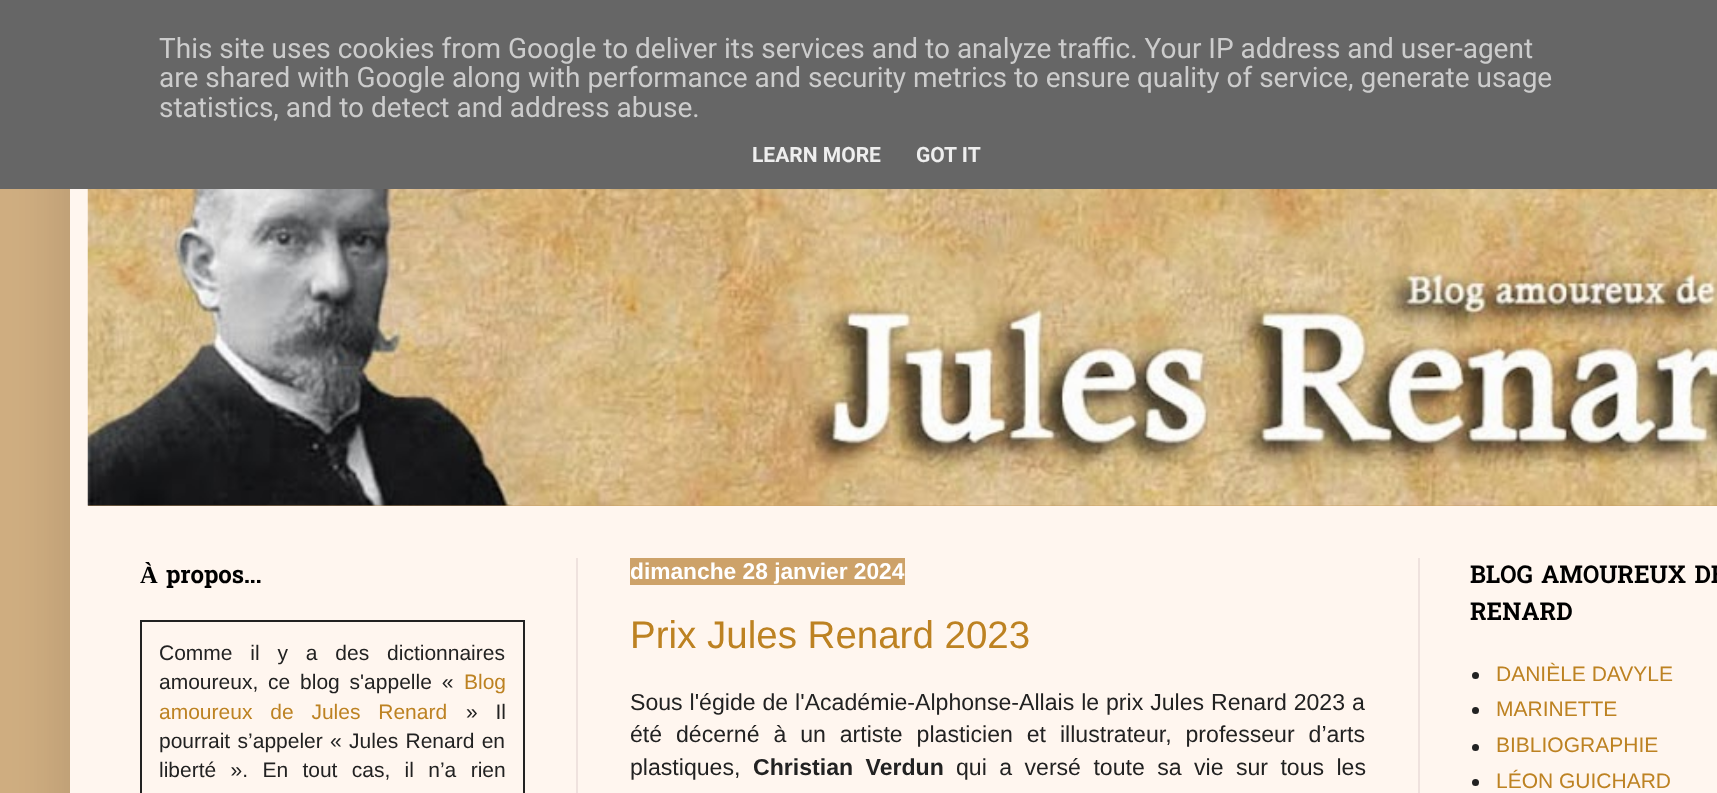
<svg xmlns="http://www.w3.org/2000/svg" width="1717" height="793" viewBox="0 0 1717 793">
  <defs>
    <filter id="blur1" x="-50%" y="-200%" width="200%" height="500%"><feGaussianBlur stdDeviation="35"/></filter>
  </defs>
  <rect width="100%" height="100%" fill="#d0ae81"/>
  <rect x="70" y="53" width="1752" height="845" fill="#000000" fill-opacity="0.15" filter="url(#blur1)"/>
  <rect x="0" y="0" width="1717" height="189" fill="#666666"/>
  <text x="159" y="58" font-family="Roboto" font-size="28" fill="#cccccc">This site uses cookies from Google to deliver its services and to analyze traffic. Your IP address and user-agent</text>
  <text x="159" y="87" font-family="Roboto" font-size="28" fill="#cccccc">are shared with Google along with performance and security metrics to ensure quality of service, generate usage</text>
  <text x="159" y="117" font-family="Roboto" font-size="28" fill="#cccccc">statistics, and to detect and address abuse.</text>
  <text x="752" y="162" font-family="Roboto" font-size="21" font-weight="bold" fill="#eeeeee">LEARN MORE</text>
  <text x="916" y="162" font-family="Roboto" font-size="21" font-weight="bold" fill="#eeeeee">GOT IT</text>
  <rect x="70" y="189" width="1647" height="604" fill="#fff6ef"/>
  <rect x="88" y="505" width="1629" height="1" fill="#cda269"/>
  <image x="87" y="189" width="1630" height="317" href="img1.png"/>
  <rect x="576" y="558" width="2" height="235" fill="#efe2de"/>
  <rect x="1418" y="558" width="2" height="235" fill="#efe2de"/>
  <text x="140" y="583" font-family="Liberation Serif" font-size="24.5" font-weight="bold" fill="#000000">À</text>
  <text x="166" y="583" font-family="Hanuman" font-size="24.5" font-weight="bold" fill="#000000">propos...</text>
  <rect x="141" y="621" width="383" height="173" fill="none" stroke="#222222" stroke-width="2"/>
  <text x="159" y="660" word-spacing="12" font-family="Liberation Sans" font-size="21" fill="#222222">Comme il y a des dictionnaires</text>
  <text x="159" y="689" word-spacing="4" font-family="Liberation Sans" font-size="21" fill="#222222">amoureux, ce blog s'appelle «</text>
  <text x="464" y="689" font-family="Liberation Sans" font-size="21" fill="#bd8222">Blog</text>
  <text x="159" y="719" word-spacing="12" font-family="Liberation Sans" font-size="21" fill="#bd8222">amoureux de Jules Renard</text>
  <text x="466" y="719" word-spacing="12" font-family="Liberation Sans" font-size="21" fill="#222222">» Il</text>
  <text x="159" y="748" word-spacing="1.5" font-family="Liberation Sans" font-size="21" fill="#222222">pourrait s’appeler « Jules Renard en</text>
  <text x="159" y="777" word-spacing="8.5" font-family="Liberation Sans" font-size="21" fill="#222222">liberté ». En tout cas, il n’a rien</text>
  <rect x="630" y="558" width="275" height="27" fill="#cda269"/>
  <text x="630" y="579" font-family="Liberation Sans" font-size="22.75" font-weight="bold" fill="#ffffff">dimanche 28 janvier 2024</text>
  <text x="630" y="648" font-family="Liberation Sans" font-size="38.5" fill="#bd8222">Prix Jules Renard 2023</text>
  <text x="630" y="710" word-spacing="0.5" font-family="Liberation Sans" font-size="23.1" fill="#222222">Sous l'égide de l'Académie-Alphonse-Allais le prix Jules Renard 2023 a</text>
  <text x="630" y="742" word-spacing="7.5" font-family="Liberation Sans" font-size="23.1" fill="#222222">été décerné à un artiste plasticien et illustrateur, professeur d’arts</text>
  <text x="630" y="775" font-family="Liberation Sans" font-size="23.1" fill="#222222">plastiques,</text>
  <text x="753" y="775" word-spacing="6" font-family="Liberation Sans" font-size="23.1" font-weight="bold" fill="#222222">Christian Verdun</text>
  <text x="956" y="775" word-spacing="6" font-family="Liberation Sans" font-size="23.1" fill="#222222">qui a versé toute sa vie sur tous les</text>
  <text x="1470" y="583" font-family="Hanuman" font-size="24.5" font-weight="bold" fill="#000000">BLOG AMOUREUX DE</text>
  <text x="1470" y="620" font-family="Hanuman" font-size="24.5" font-weight="bold" fill="#000000">RENARD</text>
  <circle cx="1475.5" cy="675.5" r="3.5" fill="#222222"/>
  <text x="1496" y="681" font-family="Liberation Sans" font-size="21" fill="#bd8222">DANIÈLE DAVYLE</text>
  <circle cx="1475.5" cy="710.5" r="3.5" fill="#222222"/>
  <text x="1496" y="716" font-family="Liberation Sans" font-size="21" fill="#bd8222">MARINETTE</text>
  <circle cx="1475.5" cy="747.5" r="3.5" fill="#222222"/>
  <text x="1496" y="752" font-family="Liberation Sans" font-size="21" fill="#bd8222">BIBLIOGRAPHIE</text>
  <circle cx="1475.5" cy="782.5" r="3.5" fill="#222222"/>
  <text x="1496" y="788" font-family="Liberation Sans" font-size="21" fill="#bd8222">LÉON GUICHARD</text>
</svg>
